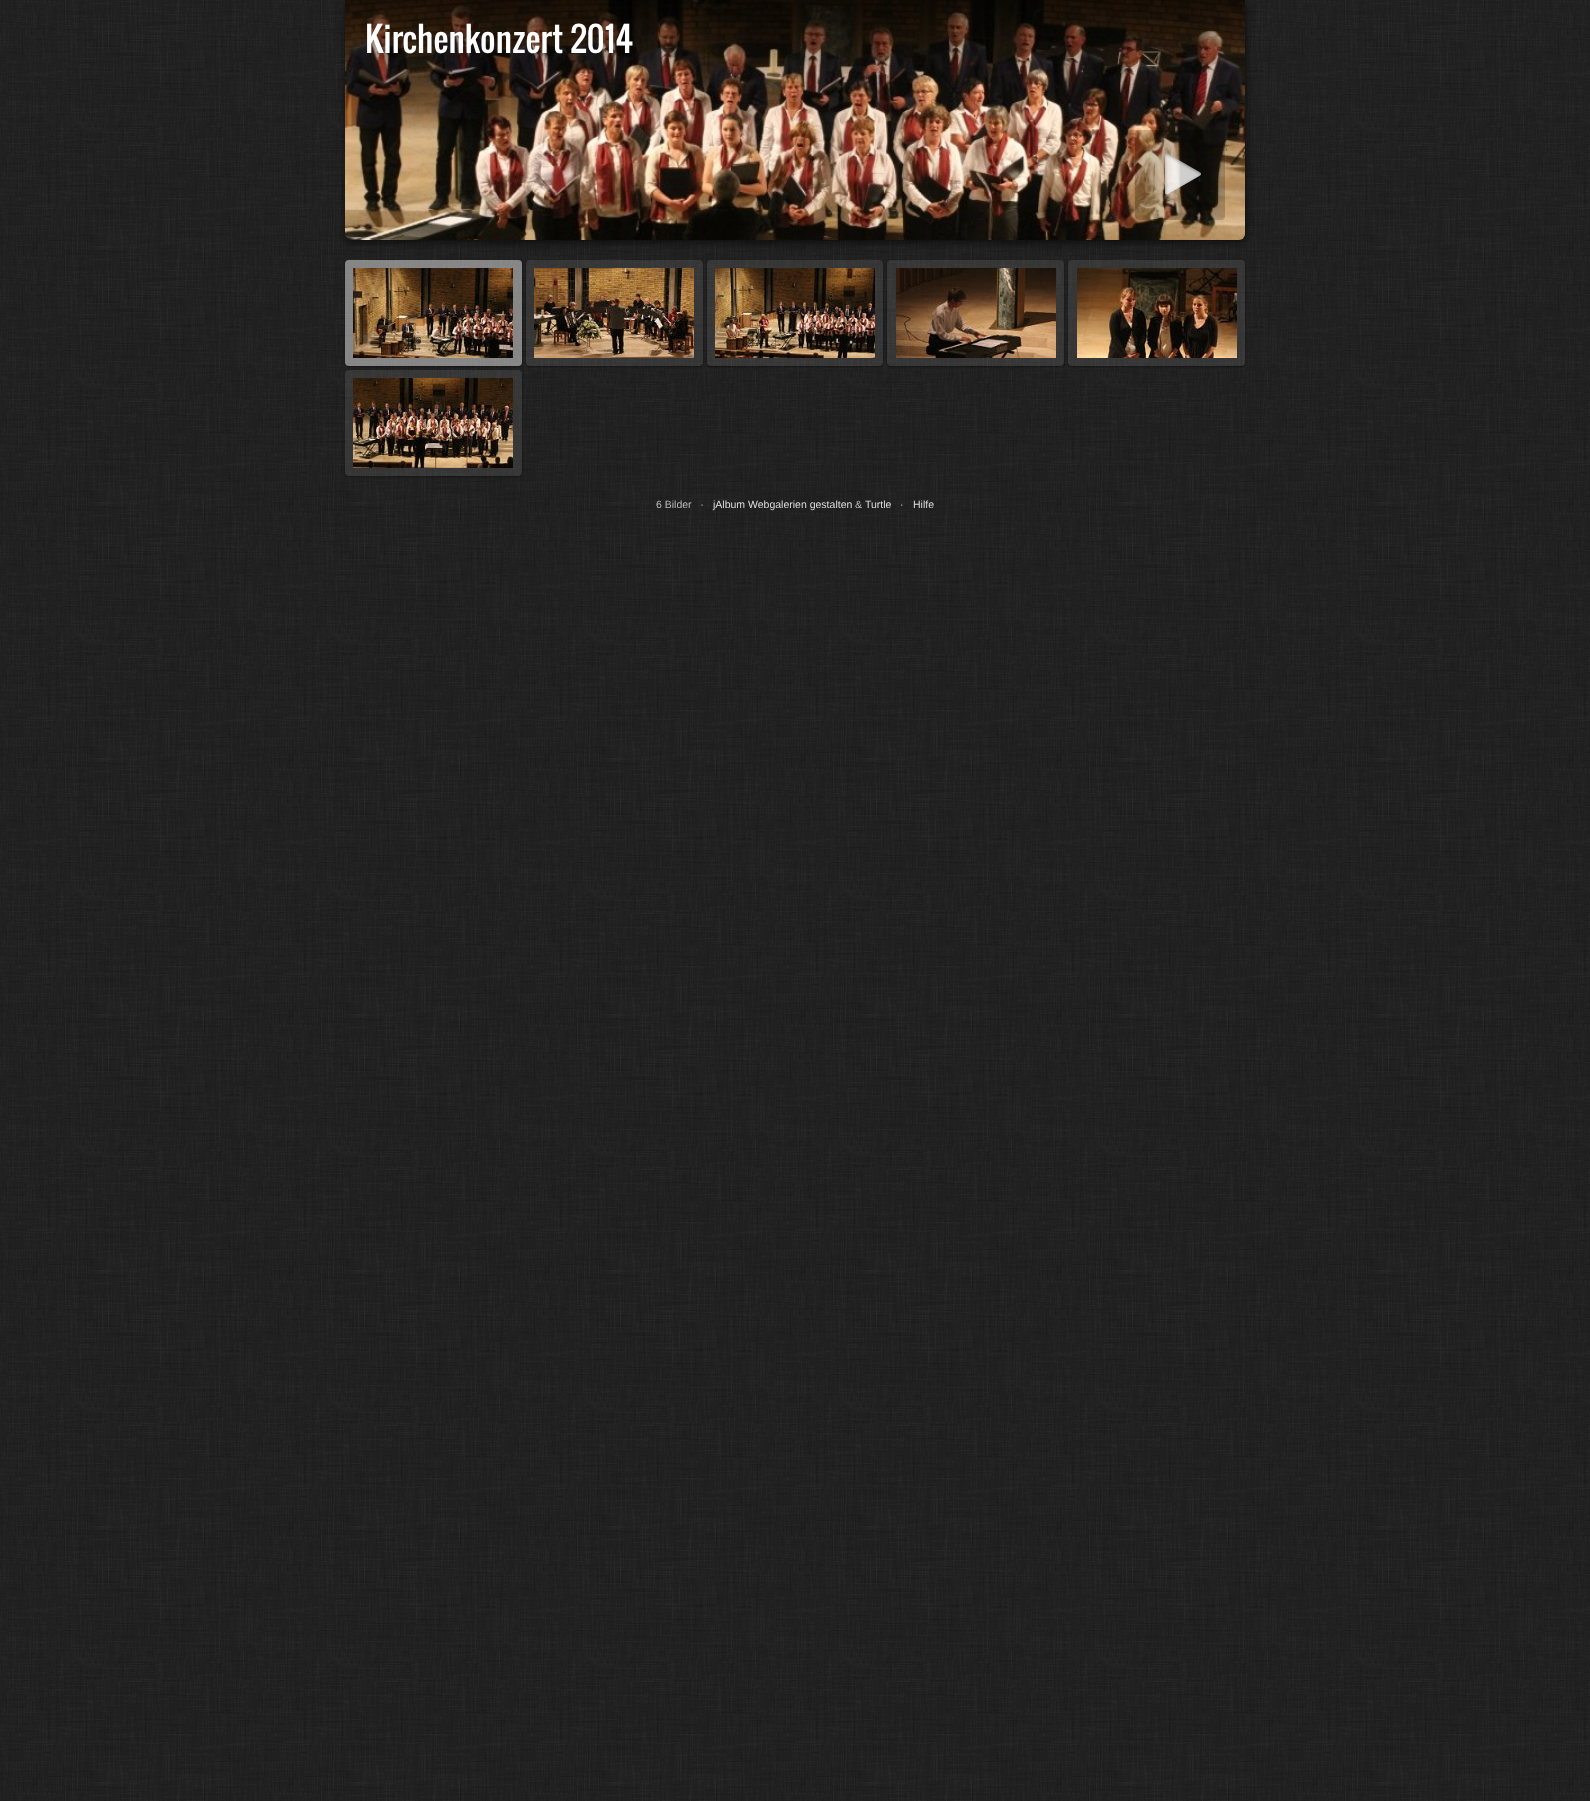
<svg xmlns="http://www.w3.org/2000/svg" width="1590" height="1801" viewBox="0 0 1590 1801">
  <defs>
    <filter id="blur1" x="-50%" y="-200%" width="200%" height="500%"><feGaussianBlur stdDeviation="4"/></filter>
    <clipPath id="clip1"><path d="M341 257H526V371H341ZM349 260H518C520 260 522 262 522 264V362C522 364 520 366 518 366H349C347 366 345 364 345 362V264C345 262 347 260 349 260Z" clip-rule="evenodd"/></clipPath>
    <filter id="blur2" x="-50%" y="-200%" width="200%" height="500%"><feGaussianBlur stdDeviation="1"/></filter>
    <clipPath id="clip2"><path d="M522 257H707V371H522ZM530 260H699C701 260 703 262 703 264V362C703 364 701 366 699 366H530C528 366 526 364 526 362V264C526 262 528 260 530 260Z" clip-rule="evenodd"/></clipPath>
    <clipPath id="clip3"><path d="M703 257H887V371H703ZM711 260H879C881 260 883 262 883 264V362C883 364 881 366 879 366H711C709 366 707 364 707 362V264C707 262 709 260 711 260Z" clip-rule="evenodd"/></clipPath>
    <clipPath id="clip4"><path d="M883 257H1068V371H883ZM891 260H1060C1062 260 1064 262 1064 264V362C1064 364 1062 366 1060 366H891C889 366 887 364 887 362V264C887 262 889 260 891 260Z" clip-rule="evenodd"/></clipPath>
    <clipPath id="clip5"><path d="M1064 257H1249V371H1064ZM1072 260H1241C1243 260 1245 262 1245 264V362C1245 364 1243 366 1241 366H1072C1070 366 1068 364 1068 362V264C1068 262 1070 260 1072 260Z" clip-rule="evenodd"/></clipPath>
    <clipPath id="clip6"><path d="M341 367H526V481H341ZM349 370H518C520 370 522 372 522 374V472C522 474 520 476 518 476H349C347 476 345 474 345 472V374C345 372 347 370 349 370Z" clip-rule="evenodd"/></clipPath>
  </defs>
  <rect width="100%" height="100%" fill="#222222"/>
  <image x="0" y="0" width="1590" height="1801" href="img1.png"/>
  <rect x="346" y="3" width="900" height="240" rx="6" fill="#000000" fill-opacity="0.6" filter="url(#blur1)"/>
  <image x="345" y="0" width="900" height="240" href="img2.png"/>
  <text x="365" y="53" font-family="Oswald" font-size="33.5" fill="#ffffff">Kirchenkonzert 2014</text>
  <rect x="1135" y="130" width="90" height="90" rx="4" fill="#000000" fill-opacity="0.2"/>
  <image x="1165" y="153" width="36" height="42" href="img3.png"/>
  <g clip-path="url(#clip1)">
    <rect x="345" y="261" width="177" height="106" rx="4" fill="#000000" fill-opacity="0.4" filter="url(#blur2)"/>
  </g>
  <rect x="345" y="260" width="177" height="106" rx="4" fill="#ffffff" fill-opacity="0.1"/>
  <rect x="345" y="260" width="177" height="106" rx="4" fill="#ffffff" fill-opacity="0.4"/>
  <image x="353" y="268" width="160" height="90" href="img4.png"/>
  <g clip-path="url(#clip2)">
    <rect x="526" y="261" width="177" height="106" rx="4" fill="#000000" fill-opacity="0.4" filter="url(#blur2)"/>
  </g>
  <rect x="526" y="260" width="177" height="106" rx="4" fill="#ffffff" fill-opacity="0.1"/>
  <image x="534" y="268" width="160" height="90" href="img5.png"/>
  <g clip-path="url(#clip3)">
    <rect x="707" y="261" width="176" height="106" rx="4" fill="#000000" fill-opacity="0.4" filter="url(#blur2)"/>
  </g>
  <rect x="707" y="260" width="176" height="106" rx="4" fill="#ffffff" fill-opacity="0.1"/>
  <image x="715" y="268" width="160" height="90" href="img6.png"/>
  <g clip-path="url(#clip4)">
    <rect x="887" y="261" width="177" height="106" rx="4" fill="#000000" fill-opacity="0.4" filter="url(#blur2)"/>
  </g>
  <rect x="887" y="260" width="177" height="106" rx="4" fill="#ffffff" fill-opacity="0.1"/>
  <image x="896" y="268" width="160" height="90" href="img7.png"/>
  <g clip-path="url(#clip5)">
    <rect x="1068" y="261" width="177" height="106" rx="4" fill="#000000" fill-opacity="0.4" filter="url(#blur2)"/>
  </g>
  <rect x="1068" y="260" width="177" height="106" rx="4" fill="#ffffff" fill-opacity="0.1"/>
  <image x="1077" y="268" width="160" height="90" href="img8.png"/>
  <g clip-path="url(#clip6)">
    <rect x="345" y="371" width="177" height="106" rx="4" fill="#000000" fill-opacity="0.4" filter="url(#blur2)"/>
  </g>
  <rect x="345" y="370" width="177" height="106" rx="4" fill="#ffffff" fill-opacity="0.1"/>
  <image x="353" y="378" width="160" height="90" href="img9.png"/>
  <text x="656" y="508" font-family="Liberation Sans" font-size="10.5" fill="#bbbbbb" xml:space="preserve">6 Bilder   ·</text>
  <text x="713" y="508" font-family="Liberation Sans" font-size="10.5" fill="#dddddd">jAlbum Webgalerien gestalten</text>
  <text x="855" y="508" font-family="Liberation Sans" font-size="10.5" fill="#bbbbbb">&amp;</text>
  <text x="865" y="508" font-family="Liberation Sans" font-size="10.5" fill="#dddddd">Turtle</text>
  <text x="900" y="508" font-family="Liberation Sans" font-size="10.5" fill="#bbbbbb">·</text>
  <text x="913" y="508" font-family="Liberation Sans" font-size="10.5" fill="#dddddd">Hilfe</text>
</svg>
